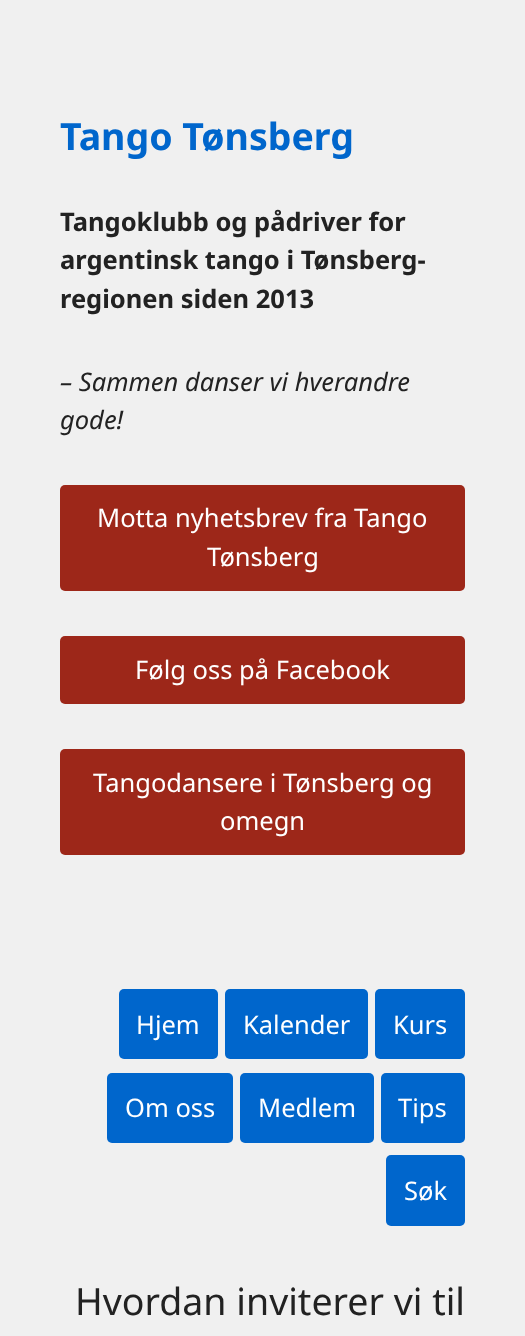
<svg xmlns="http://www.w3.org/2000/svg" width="525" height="1336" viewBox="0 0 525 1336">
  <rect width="100%" height="100%" fill="#f0f0f0"/>
  <text x="60" y="150" font-family="Noto Sans" font-size="37.5" font-weight="bold" fill="#0066cc">Tango Tønsberg</text>
  <text x="60" y="231" font-family="Noto Sans" font-size="25.5" font-weight="bold" fill="#222222">Tangoklubb og pådriver for</text>
  <text x="60" y="269" font-family="Noto Sans" font-size="25.5" font-weight="bold" fill="#222222">argentinsk tango i Tønsberg-</text>
  <text x="60" y="308" font-family="Noto Sans" font-size="25.5" font-weight="bold" fill="#222222">regionen siden 2013</text>
  <text x="60" y="391" font-family="Noto Sans" font-size="25.5" font-style="italic" fill="#222222">– Sammen danser vi hverandre</text>
  <text x="60" y="429" font-family="Noto Sans" font-size="25.5" font-style="italic" fill="#222222">gode!</text>
  <rect x="60" y="485" width="405" height="106" rx="5" fill="#9d2719"/>
  <text x="97" y="527" font-family="Noto Sans" font-size="25.5" fill="#ffffff">Motta nyhetsbrev fra Tango</text>
  <text x="207" y="566" font-family="Noto Sans" font-size="25.5" fill="#ffffff">Tønsberg</text>
  <rect x="60" y="636" width="405" height="68" rx="5" fill="#9d2719"/>
  <text x="135" y="679" font-family="Noto Sans" font-size="25.5" fill="#ffffff">Følg oss på Facebook</text>
  <rect x="60" y="749" width="405" height="106" rx="5" fill="#9d2719"/>
  <text x="93" y="792" font-family="Noto Sans" font-size="25.5" fill="#ffffff">Tangodansere i Tønsberg og</text>
  <text x="220" y="830" font-family="Noto Sans" font-size="25.5" fill="#ffffff">omegn</text>
  <rect x="119" y="989" width="99" height="70" rx="5" fill="#0066cc"/>
  <text x="136" y="1034" font-family="Noto Sans" font-size="25.5" fill="#ffffff">Hjem</text>
  <rect x="225" y="989" width="143" height="70" rx="5" fill="#0066cc"/>
  <text x="243" y="1034" font-family="Noto Sans" font-size="25.5" fill="#ffffff">Kalender</text>
  <rect x="375" y="989" width="90" height="70" rx="5" fill="#0066cc"/>
  <text x="393" y="1034" font-family="Noto Sans" font-size="25.5" fill="#ffffff">Kurs</text>
  <rect x="107" y="1073" width="126" height="70" rx="5" fill="#0066cc"/>
  <text x="125" y="1117" font-family="Noto Sans" font-size="25.5" fill="#ffffff">Om oss</text>
  <rect x="240" y="1073" width="134" height="70" rx="5" fill="#0066cc"/>
  <text x="258" y="1117" font-family="Noto Sans" font-size="25.5" fill="#ffffff">Medlem</text>
  <rect x="381" y="1073" width="84" height="70" rx="5" fill="#0066cc"/>
  <text x="398" y="1117" font-family="Noto Sans" font-size="25.5" fill="#ffffff">Tips</text>
  <rect x="386" y="1155" width="79" height="71" rx="5" fill="#0066cc"/>
  <text x="404" y="1200" font-family="Noto Sans" font-size="25.5" fill="#ffffff">Søk</text>
  <text x="75" y="1315" font-family="Noto Sans" font-size="37.5" fill="#222222">Hvordan inviterer vi til</text>
</svg>
